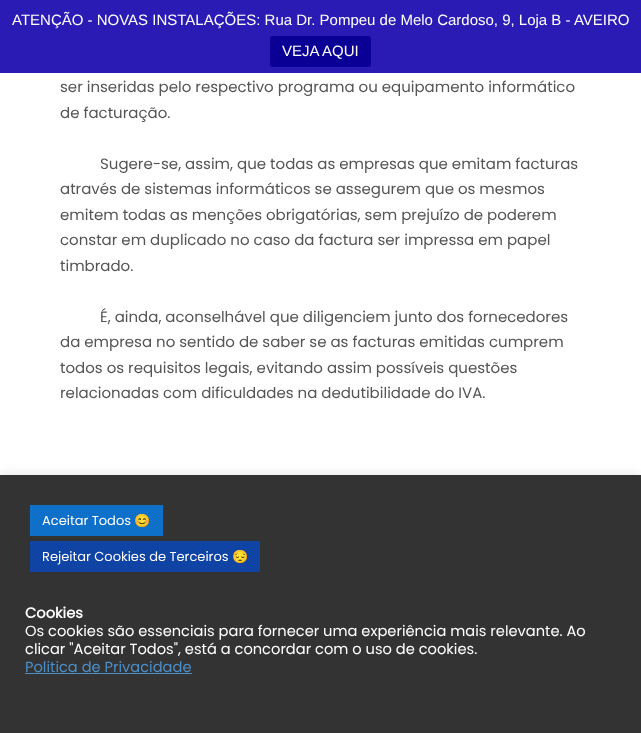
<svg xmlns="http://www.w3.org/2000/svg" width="641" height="733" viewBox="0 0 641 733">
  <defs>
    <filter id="blur1" x="-50%" y="-200%" width="200%" height="500%"><feGaussianBlur stdDeviation="5"/></filter>
  </defs>
  <rect width="100%" height="100%" fill="#ffffff"/>
  <rect x="0" y="0" width="641" height="73" fill="#2a1bb5"/>
  <text x="12" y="25" font-family="Liberation Sans" font-size="15" fill="#ffffff">ATENÇÃO - NOVAS INSTALAÇÕES: Rua Dr. Pompeu de Melo Cardoso, 9, Loja B - AVEIRO</text>
  <rect x="270" y="36" width="101" height="31" rx="3" fill="#0b0096"/>
  <text x="282" y="56" font-family="Liberation Sans" font-size="15" fill="#ffffff">VEJA AQUI</text>
  <text x="60" y="92" font-family="Poppins" font-size="15" fill="#555555">ser inseridas pelo respectivo programa ou equipamento informático</text>
  <text x="60" y="118" font-family="Poppins" font-size="15" fill="#555555">de facturação.</text>
  <text x="100" y="169" font-family="Poppins" font-size="15" fill="#555555">Sugere-se, assim, que todas as empresas que emitam facturas</text>
  <text x="60" y="194" font-family="Poppins" font-size="15" fill="#555555">através de sistemas informáticos se assegurem que os mesmos</text>
  <text x="60" y="220" font-family="Poppins" font-size="15" fill="#555555">emitem todas as menções obrigatórias, sem prejuízo de poderem</text>
  <text x="60" y="245" font-family="Poppins" font-size="15" fill="#555555">constar em duplicado no caso da factura ser impressa em papel</text>
  <text x="60" y="271" font-family="Poppins" font-size="15" fill="#555555">timbrado.</text>
  <text x="100" y="322" font-family="Poppins" font-size="15" fill="#555555">É, ainda, aconselhável que diligenciem junto dos fornecedores</text>
  <text x="60" y="347" font-family="Poppins" font-size="15" fill="#555555">da empresa no sentido de saber se as facturas emitidas cumprem</text>
  <text x="60" y="373" font-family="Poppins" font-size="15" fill="#555555">todos os requisitos legais, evitando assim possíveis questões</text>
  <text x="60" y="398" font-family="Poppins" font-size="15" fill="#555555">relacionadas com dificuldades na dedutibilidade do IVA.</text>
  <rect x="0" y="474" width="641" height="258" fill="#acabab" fill-opacity="0.3" filter="url(#blur1)"/>
  <rect x="0" y="475" width="641" height="258" fill="#333333"/>
  <rect x="30" y="505" width="133" height="31" fill="#0e70c8"/>
  <text x="42" y="525" font-family="Poppins" font-size="13" fill="#ffffff">Aceitar Todos</text>
  <text x="134" y="525" font-family="Noto Color Emoji" font-size="13" fill="#ffffff">😊</text>
  <rect x="30" y="541" width="230" height="31" fill="#0f43a4"/>
  <text x="42" y="561" font-family="Poppins" font-size="13" fill="#ffffff">Rejeitar Cookies de Terceiros</text>
  <text x="232" y="561" font-family="Noto Color Emoji" font-size="13" fill="#ffffff">😔</text>
  <text x="25" y="618" font-family="Poppins" font-size="14.65" font-weight="bold" fill="#ffffff">Cookies</text>
  <text x="25" y="636" font-family="Poppins" font-size="14.65" fill="#ffffff">Os cookies são essenciais para fornecer uma experiência mais relevante. Ao</text>
  <text x="25" y="654" font-family="Poppins" font-size="14.65" fill="#ffffff">clicar "Aceitar Todos", está a concordar com o uso de cookies.</text>
  <text x="25" y="672" font-family="Poppins" font-size="14.65" fill="#4d8ec6">Politica de Privacidade</text>
  <rect x="25" y="673" width="167" height="1" fill="#4d8ec6"/>
</svg>
